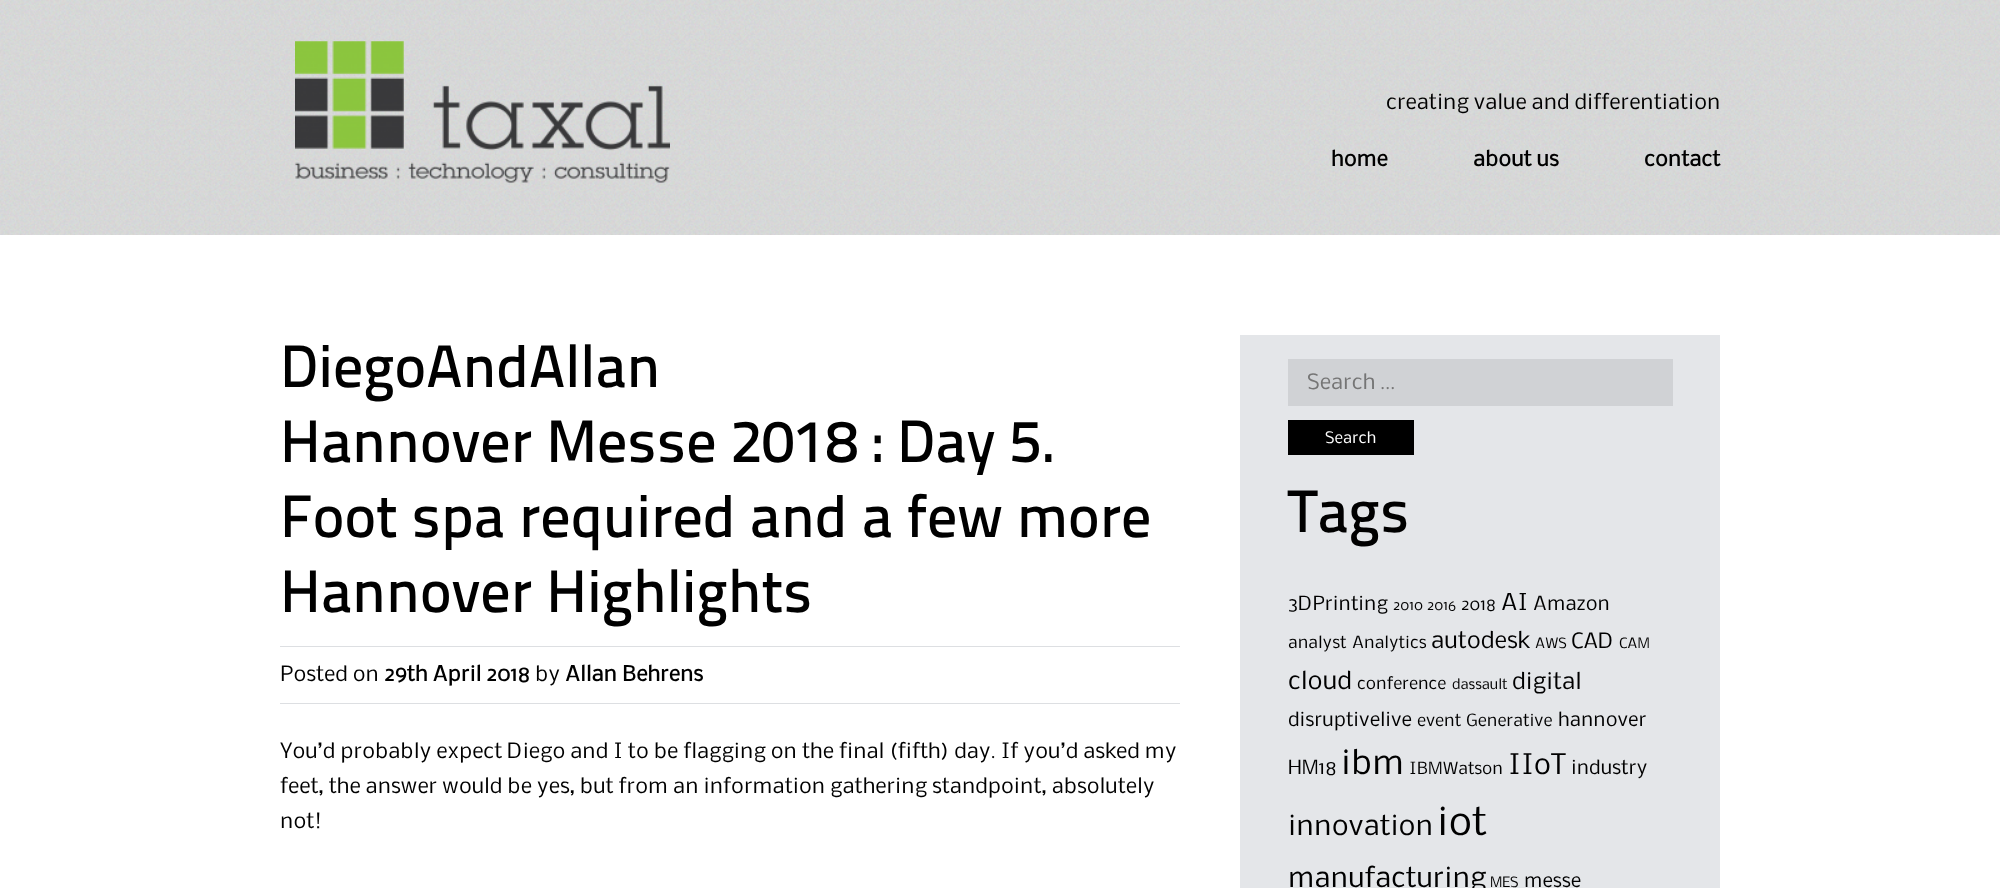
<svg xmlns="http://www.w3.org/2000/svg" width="2000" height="888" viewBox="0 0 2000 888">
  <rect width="100%" height="100%" fill="#ffffff"/>
  <image x="0" y="0" width="2000" height="235" href="img1.png"/>
  <image x="295" y="41" width="375" height="142" href="img2.png"/>
  <text x="1386" y="109" font-family="Nobile" font-size="20" fill="#000000">creating value and differentiation</text>
  <text x="1331" y="166" font-family="Nobile" font-size="20" font-weight="bold" fill="#000000">home</text>
  <text x="1473" y="166" font-family="Nobile" font-size="20" font-weight="bold" fill="#000000">about us</text>
  <text x="1644" y="166" font-family="Nobile" font-size="20" font-weight="bold" fill="#000000">contact</text>
  <text x="280" y="387" font-family="'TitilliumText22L'" font-size="60" font-weight="500" fill="#000000">DiegoAndAllan</text>
  <rect x="280" y="646" width="900" height="1" fill="#dddfe2"/>
  <text x="280" y="462" font-family="'TitilliumText22L'" font-size="60" font-weight="500" fill="#000000">Hannover Messe 2018 : Day 5.</text>
  <text x="280" y="537" font-family="'TitilliumText22L'" font-size="60" font-weight="500" fill="#000000">Foot spa required and a few more</text>
  <text x="280" y="612" font-family="'TitilliumText22L'" font-size="60" font-weight="500" fill="#000000">Hannover Highlights</text>
  <rect x="280" y="703" width="900" height="1" fill="#dddfe2"/>
  <text x="280" y="681" font-family="Nobile" font-size="20" fill="#000000">Posted on</text>
  <text x="384" y="681" font-family="Nobile" font-size="20" font-weight="bold" fill="#000000">29th April 2018</text>
  <text x="535" y="681" font-family="Nobile" font-size="20" fill="#000000">by</text>
  <text x="565" y="681" font-family="Nobile" font-size="20" font-weight="bold" fill="#000000">Allan Behrens</text>
  <text x="280" y="758" font-family="Nobile" font-size="20" fill="#000000">You’d probably expect Diego and I to be flagging on the final (fifth) day. If you’d asked my</text>
  <text x="280" y="793" font-family="Nobile" font-size="20" fill="#000000">feet, the answer would be yes, but from an information gathering standpoint, absolutely</text>
  <text x="280" y="828" font-family="Nobile" font-size="20" fill="#000000">not!</text>
  <rect x="1240" y="335" width="480" height="553" fill="#e4e6e9"/>
  <rect x="1288" y="359" width="385" height="47" fill="#d0d2d5"/>
  <text x="1307" y="389" font-family="Nobile" font-size="20" fill="#757575">Search …</text>
  <rect x="1288" y="420" width="126" height="35" fill="#000000"/>
  <text x="1325" y="443" font-family="Nobile" font-size="15" fill="#ffffff">Search</text>
  <text x="1288" y="532" font-family="'TitilliumText22L'" font-size="60" font-weight="500" fill="#000000">Tags</text>
  <text x="1288" y="610" font-family="Nobile" font-size="18.5" fill="#000000">3DPrinting</text>
  <text x="1393" y="610" font-family="Nobile" font-size="13.5" fill="#000000">2010</text>
  <text x="1427" y="610" font-family="Nobile" font-size="13.5" fill="#000000">2016</text>
  <text x="1461" y="610" font-family="Nobile" font-size="16" fill="#000000">2018</text>
  <text x="1501" y="610" font-family="Nobile" font-size="22" fill="#000000">AI</text>
  <text x="1533" y="610" font-family="Nobile" font-size="18.5" fill="#000000">Amazon</text>
  <text x="1288" y="648" font-family="Nobile" font-size="16" fill="#000000">analyst</text>
  <text x="1352" y="648" font-family="Nobile" font-size="16" fill="#000000">Analytics</text>
  <text x="1431" y="648" font-family="Nobile" font-size="22" fill="#000000">autodesk</text>
  <text x="1535" y="648" font-family="Nobile" font-size="13.5" fill="#000000">AWS</text>
  <text x="1571" y="648" font-family="Nobile" font-size="20" fill="#000000">CAD</text>
  <text x="1619" y="648" font-family="Nobile" font-size="13.5" fill="#000000">CAM</text>
  <text x="1288" y="689" font-family="Nobile" font-size="23.5" fill="#000000">cloud</text>
  <text x="1357" y="689" font-family="Nobile" font-size="16" fill="#000000">conference</text>
  <text x="1452" y="689" font-family="Nobile" font-size="13.5" fill="#000000">dassault</text>
  <text x="1512" y="689" font-family="Nobile" font-size="22" fill="#000000">digital</text>
  <text x="1288" y="726" font-family="Nobile" font-size="18.5" fill="#000000">disruptivelive</text>
  <text x="1417" y="726" font-family="Nobile" font-size="16" fill="#000000">event</text>
  <text x="1466" y="726" font-family="Nobile" font-size="16" fill="#000000">Generative</text>
  <text x="1558" y="726" font-family="Nobile" font-size="18.5" fill="#000000">hannover</text>
  <text x="1288" y="774" font-family="Nobile" font-size="18.5" fill="#000000">HM18</text>
  <text x="1341" y="774" font-family="Nobile" font-size="32" fill="#000000">ibm</text>
  <text x="1409" y="774" font-family="Nobile" font-size="16" fill="#000000">IBMWatson</text>
  <text x="1508" y="774" font-family="Nobile" font-size="27" fill="#000000">IIoT</text>
  <text x="1571" y="774" font-family="Nobile" font-size="18.5" fill="#000000">industry</text>
  <text x="1288" y="835" font-family="Nobile" font-size="26.5" fill="#000000">innovation</text>
  <text x="1437" y="835" font-family="Nobile" font-size="37" fill="#000000">iot</text>
  <text x="1288" y="887" font-family="Nobile" font-size="26.5" fill="#000000">manufacturing</text>
  <text x="1490" y="887" font-family="Nobile" font-size="13.5" fill="#000000">MES</text>
  <text x="1524" y="887" font-family="Nobile" font-size="18.5" fill="#000000">messe</text>
</svg>
